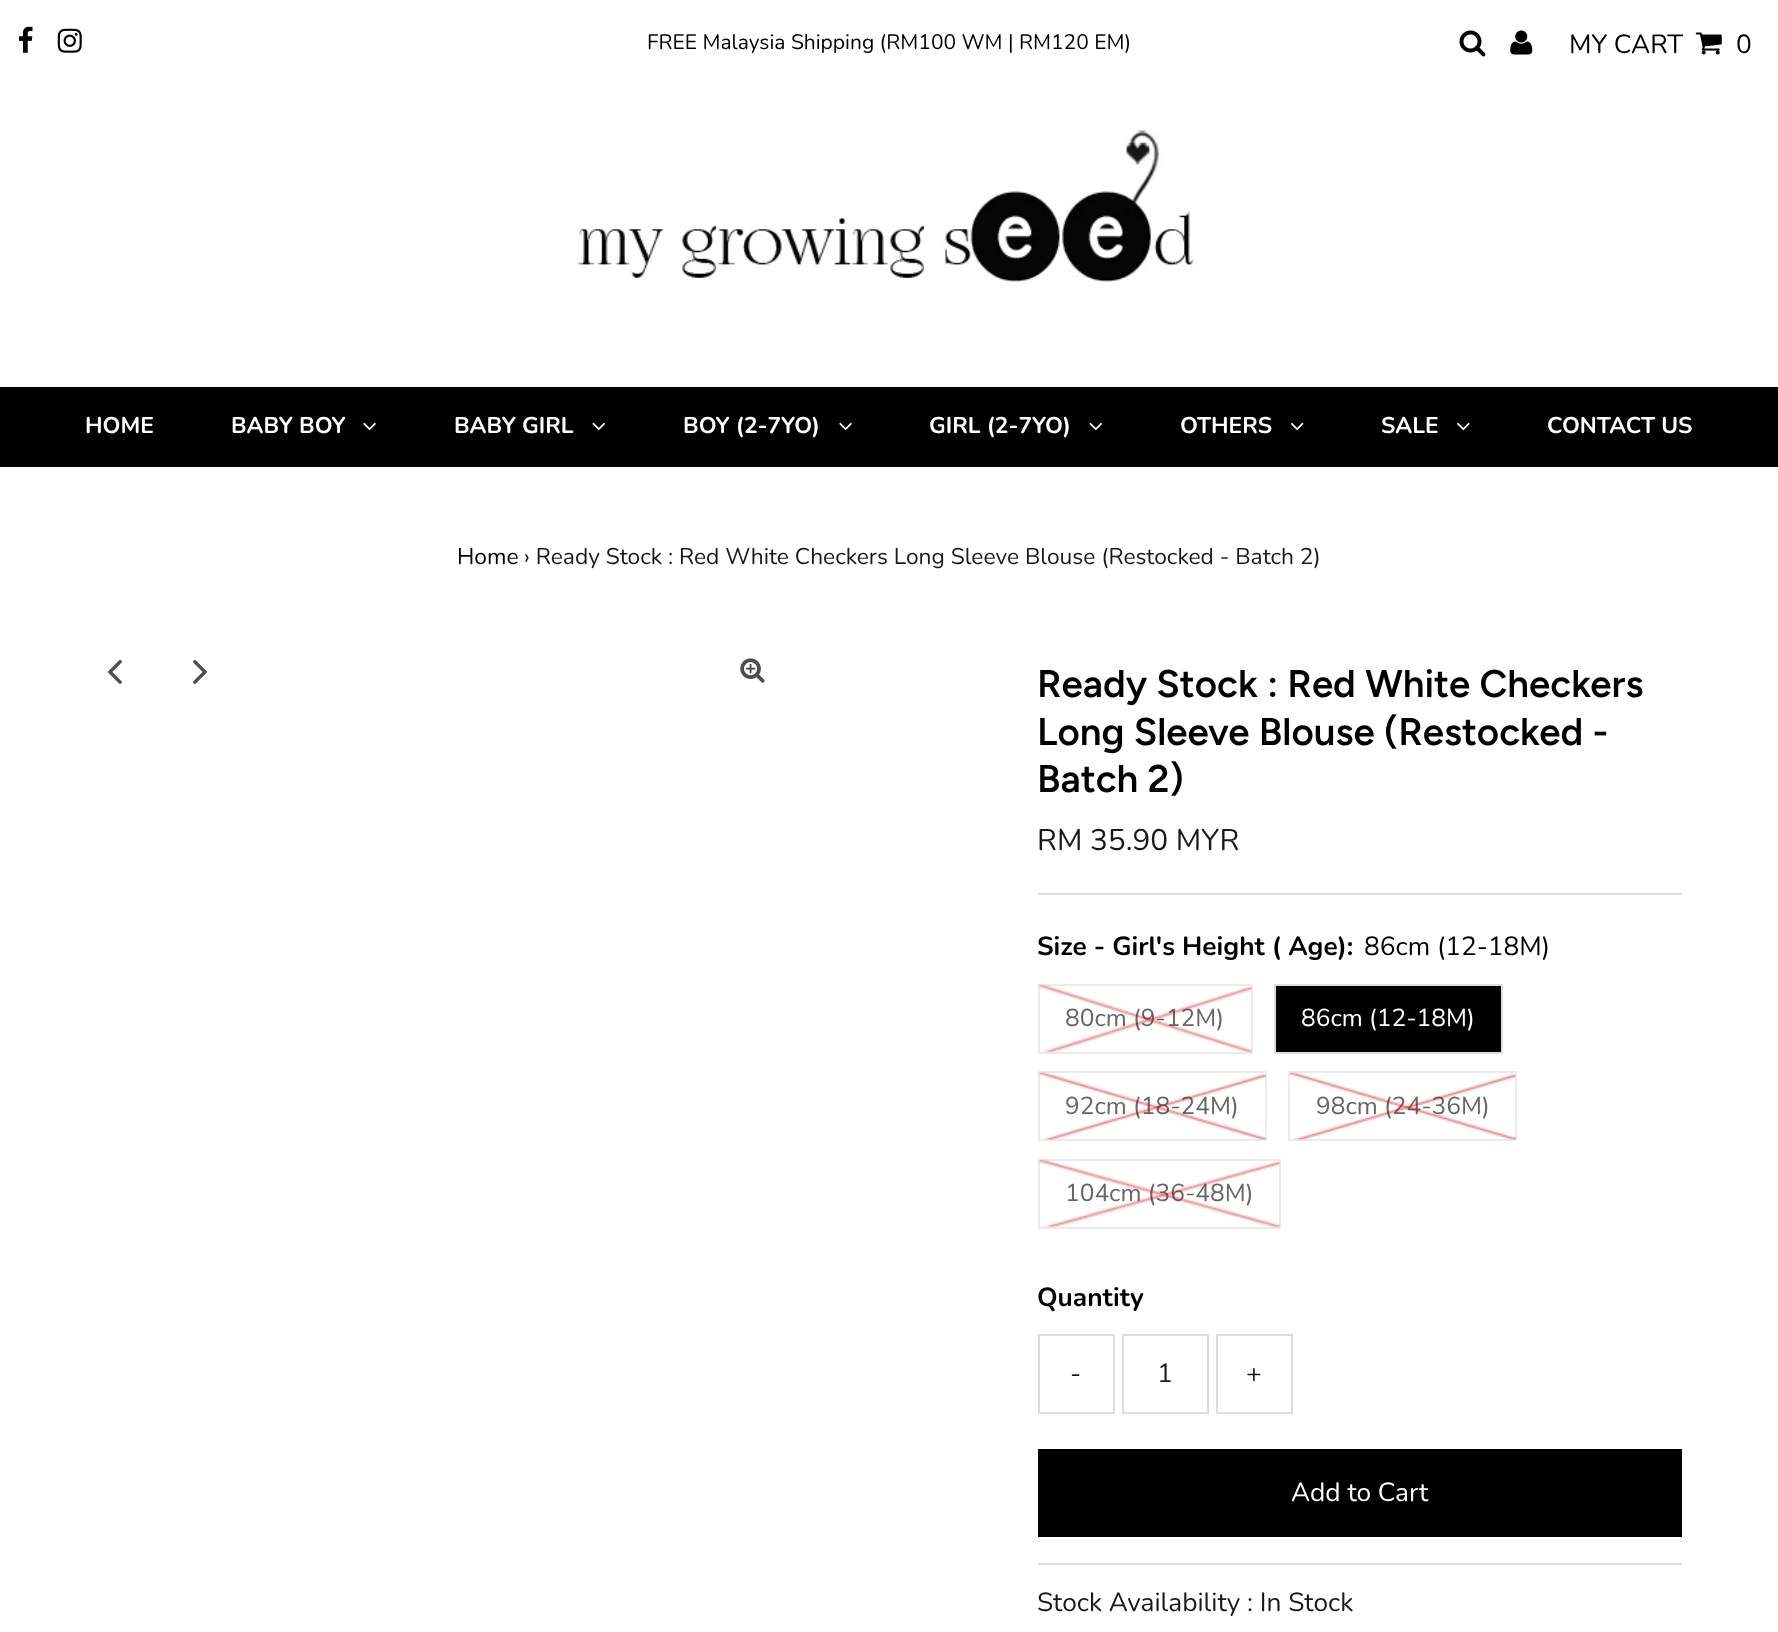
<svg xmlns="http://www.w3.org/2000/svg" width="1778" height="1632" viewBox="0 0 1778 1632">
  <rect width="100%" height="100%" fill="#ffffff"/>
  <image x="19" y="26" width="14" height="27" href="img1.png"/>
  <image x="57" y="28" width="25" height="25" href="img2.png"/>
  <text x="647" y="49" font-family="Nunito" font-size="21" fill="#000000">FREE Malaysia Shipping (RM100 WM | RM120 EM)</text>
  <image x="1459" y="30" width="27" height="27" href="img3.png"/>
  <image x="1510" y="30" width="23" height="25" href="img4.png"/>
  <text x="1569" y="53" font-family="Nunito" font-size="26.25" fill="#000000">MY CART</text>
  <image x="1695" y="32" width="27" height="23" href="img5.png"/>
  <text x="1736" y="53" font-family="Nunito" font-size="26.25" fill="#000000">0</text>
  <image x="577" y="127" width="617" height="155" href="img6.png"/>
  <rect x="0" y="387" width="1778" height="80" fill="#000000"/>
  <text x="85" y="433" font-family="Nunito" font-size="22.75" font-weight="bold" fill="#ffffff">HOME</text>
  <text x="231" y="433" font-family="Nunito" font-size="22.75" font-weight="bold" fill="#ffffff">BABY BOY</text>
  <image x="363" y="422" width="13" height="9" href="img7.png"/>
  <text x="454" y="433" font-family="Nunito" font-size="22.75" font-weight="bold" fill="#ffffff">BABY GIRL</text>
  <image x="592" y="422" width="14" height="9" href="img8.png"/>
  <text x="683" y="433" font-family="Nunito" font-size="22.75" font-weight="bold" fill="#ffffff">BOY (2-7YO)</text>
  <image x="839" y="422" width="13" height="9" href="img7.png"/>
  <text x="929" y="433" font-family="Nunito" font-size="22.75" font-weight="bold" fill="#ffffff">GIRL (2-7YO)</text>
  <image x="1089" y="422" width="14" height="9" href="img8.png"/>
  <text x="1180" y="433" font-family="Nunito" font-size="22.75" font-weight="bold" fill="#ffffff">OTHERS</text>
  <image x="1290" y="422" width="14" height="9" href="img9.png"/>
  <text x="1381" y="433" font-family="Nunito" font-size="22.75" font-weight="bold" fill="#ffffff">SALE</text>
  <image x="1457" y="422" width="13" height="9" href="img10.png"/>
  <text x="1547" y="433" font-family="Nunito" font-size="22.75" font-weight="bold" fill="#ffffff">CONTACT US</text>
  <text x="457" y="564" font-family="Nunito" font-size="22.75" fill="#000000">Home</text>
  <text x="524" y="564" font-family="Nunito" font-size="22.75" fill="#191919">› Ready Stock : Red White Checkers Long Sleeve Blouse (Restocked - Batch 2)</text>
  <image x="107" y="659" width="15" height="25" href="img11.png"/>
  <image x="192" y="659" width="15" height="26" href="img12.png"/>
  <image x="740" y="658" width="25" height="25" href="img13.png"/>
  <text x="1037" y="697" font-family="Figtree" font-size="38.5" font-weight="600" fill="#000000">Ready Stock : Red White Checkers</text>
  <text x="1037" y="745" font-family="Figtree" font-size="38.5" font-weight="600" fill="#000000">Long Sleeve Blouse (Restocked -</text>
  <text x="1037" y="792" font-family="Figtree" font-size="38.5" font-weight="600" fill="#000000">Batch 2)</text>
  <rect x="1038" y="1563" width="644" height="2" fill="#dddddd"/>
  <rect x="1038" y="893" width="644" height="2" fill="#dddddd"/>
  <text x="1037" y="850" font-family="Nunito" font-size="29.75" fill="#191919">RM 35.90 MYR</text>
  <text x="1037" y="955" font-family="Nunito" font-size="26.25" font-weight="bold" fill="#000000">Size - Girl's Height ( Age):</text>
  <text x="1364" y="955" font-family="Nunito" font-size="26.25" fill="#000000">86cm (12-18M)</text>
  <rect x="1039" y="985" width="213" height="68" fill="none" stroke="#ebebeb" stroke-width="2"/>
  <text x="1065" y="1026" font-family="Nunito" font-size="24.5" fill="#666666">80cm (9-12M)</text>
  <image x="1039" y="984" width="213" height="69" href="img14.png"/>
  <rect x="1275" y="985" width="227" height="68" fill="#000000" stroke="#dddddd" stroke-width="2"/>
  <text x="1301" y="1026" font-family="Nunito" font-size="24.5" fill="#ffffff">86cm (12-18M)</text>
  <rect x="1039" y="1072" width="227" height="68" fill="none" stroke="#ebebeb" stroke-width="2"/>
  <text x="1065" y="1114" font-family="Nunito" font-size="24.5" fill="#666666">92cm (18-24M)</text>
  <image x="1038" y="1072" width="228" height="68" href="img15.png"/>
  <rect x="1289" y="1072" width="227" height="68" fill="none" stroke="#ebebeb" stroke-width="2"/>
  <text x="1316" y="1114" font-family="Nunito" font-size="24.5" fill="#666666">98cm (24-36M)</text>
  <image x="1289" y="1072" width="227" height="68" href="img16.png"/>
  <rect x="1039" y="1160" width="241" height="68" fill="none" stroke="#ebebeb" stroke-width="2"/>
  <text x="1065" y="1201" font-family="Nunito" font-size="24.5" fill="#666666">104cm (36-48M)</text>
  <image x="1039" y="1159" width="241" height="69" href="img17.png"/>
  <text x="1037" y="1306" font-family="Nunito" font-size="26.25" font-weight="bold" fill="#000000">Quantity</text>
  <rect x="1039" y="1335" width="75" height="78" fill="none" stroke="#dddddd" stroke-width="2"/>
  <text x="1070" y="1382" font-family="Nunito" font-size="26.25" fill="#191919">-</text>
  <rect x="1123" y="1335" width="85" height="78" fill="none" stroke="#dddddd" stroke-width="2"/>
  <text x="1157" y="1382" font-family="Nunito" font-size="26.25" fill="#191919">1</text>
  <rect x="1217" y="1335" width="75" height="78" fill="none" stroke="#dddddd" stroke-width="2"/>
  <text x="1246" y="1382" font-family="Nunito" font-size="26.25" fill="#191919">+</text>
  <rect x="1038" y="1449" width="644" height="88" fill="#000000"/>
  <text x="1291" y="1501" font-family="Nunito" font-size="26.25" fill="#ffffff">Add to Cart</text>
  <text x="1037" y="1611" font-family="Nunito" font-size="26.25" fill="#191919">Stock Availability : In Stock</text>
</svg>
